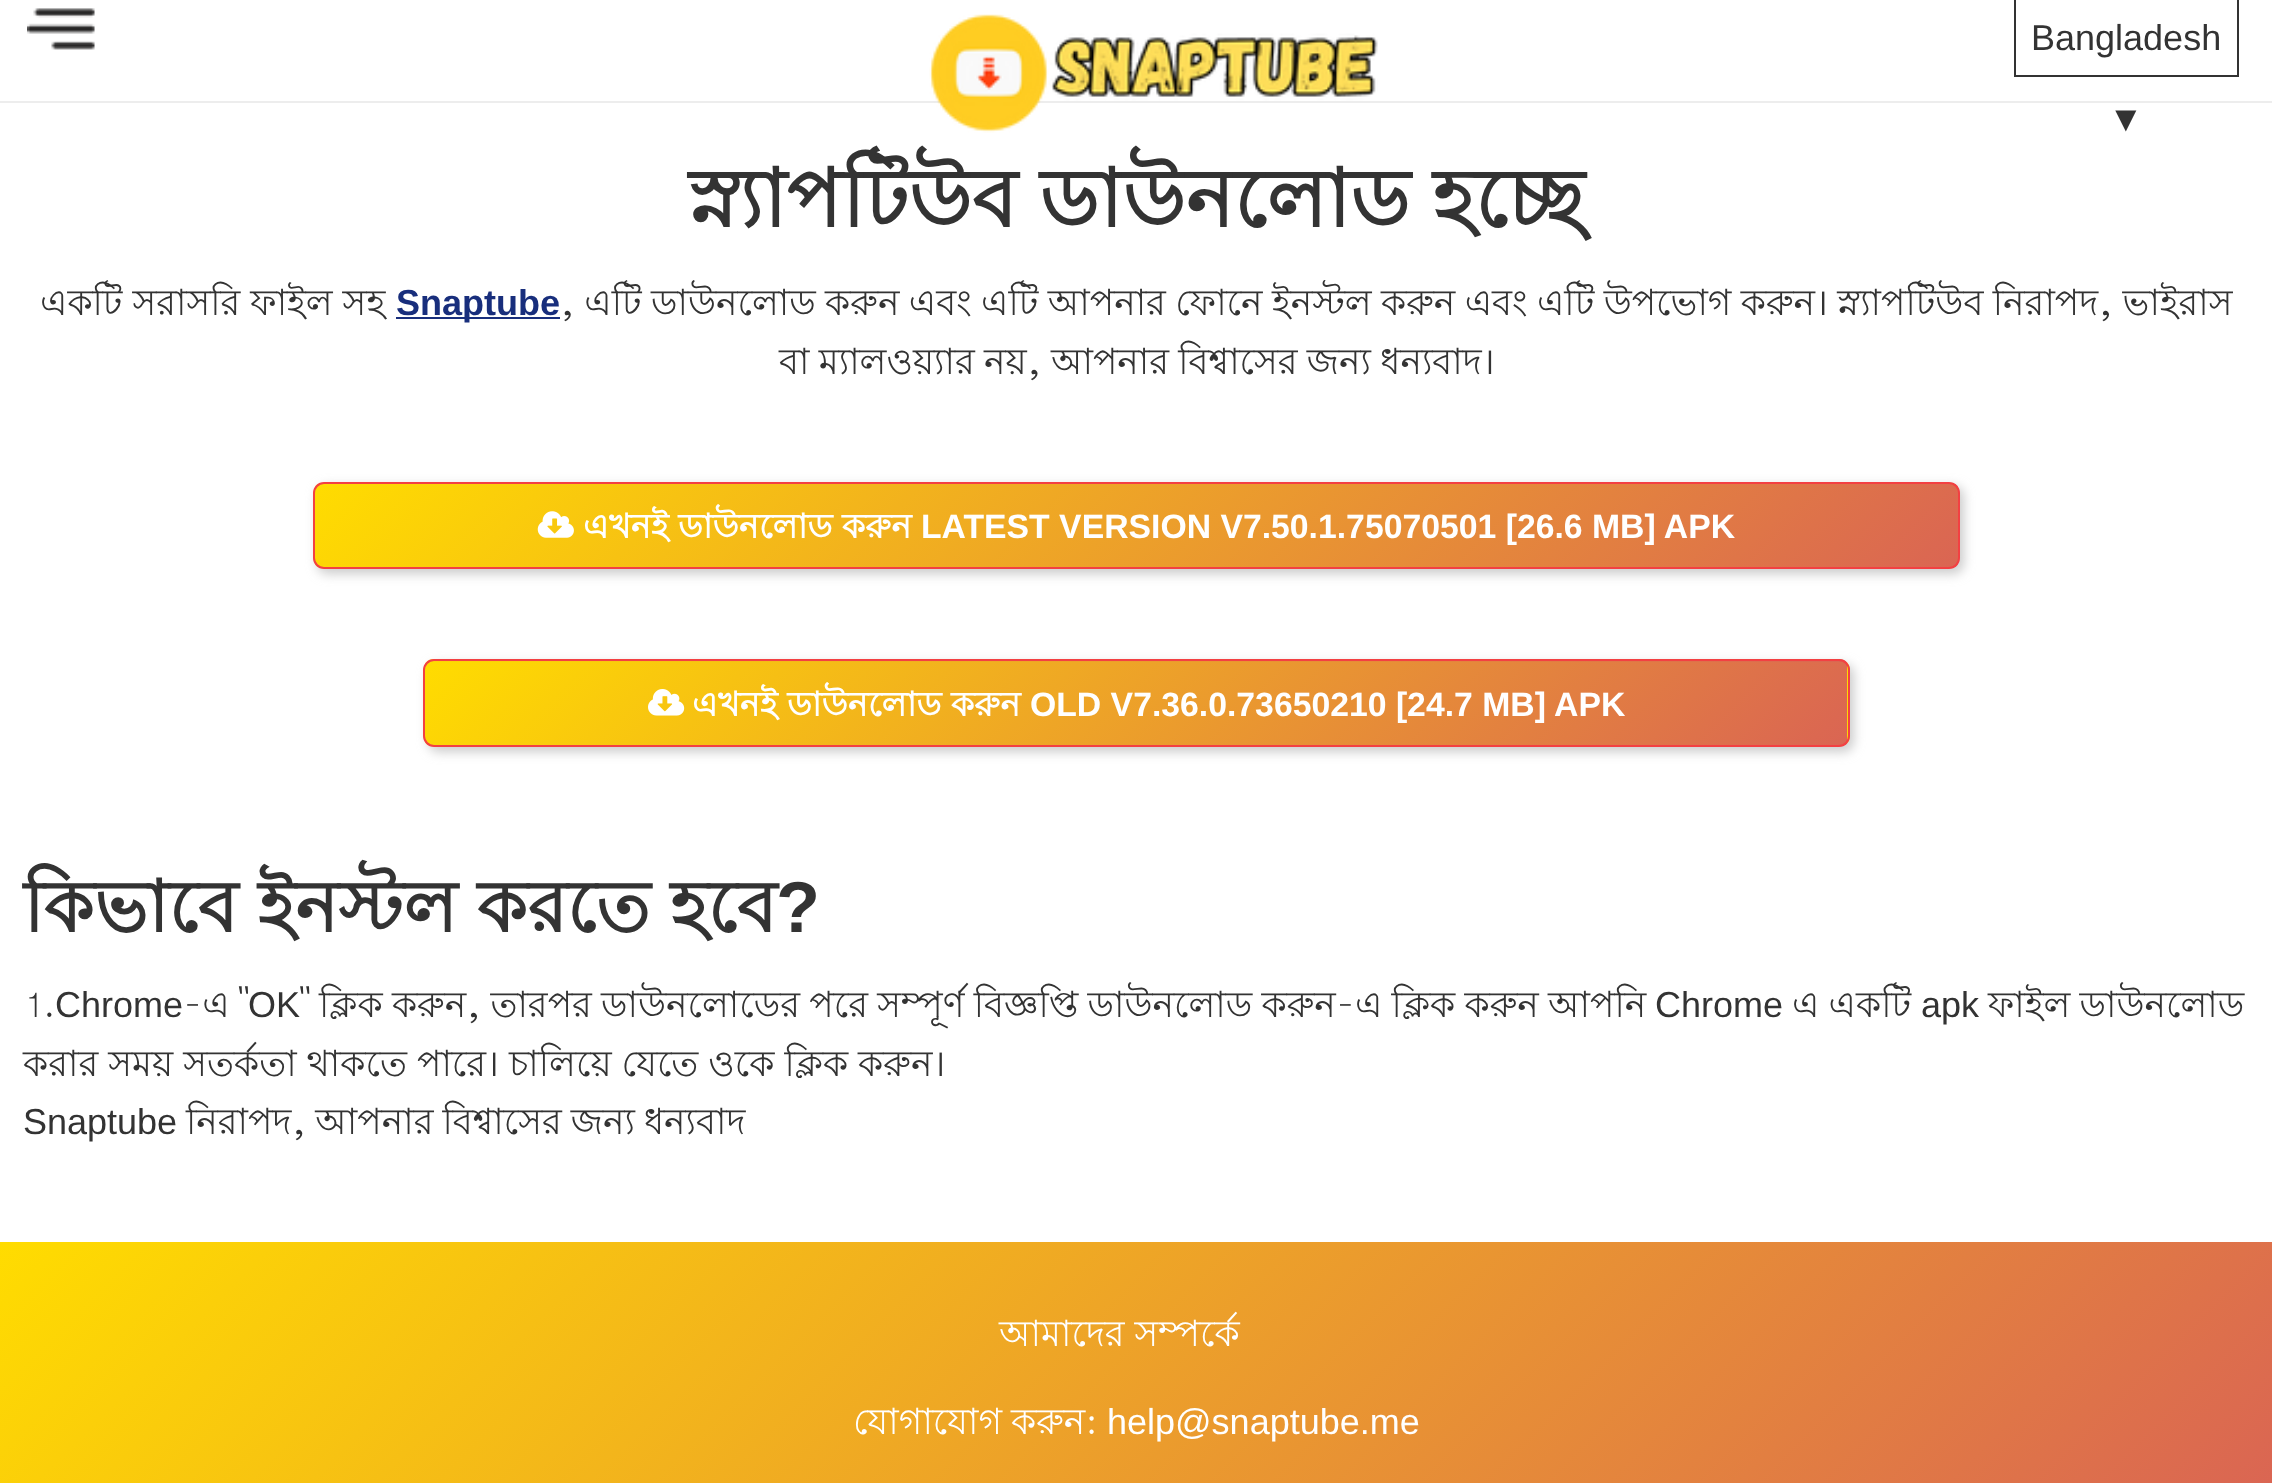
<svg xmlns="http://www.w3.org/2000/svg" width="2272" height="1483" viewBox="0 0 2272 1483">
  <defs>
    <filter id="blur1" x="-50%" y="-200%" width="200%" height="500%"><feGaussianBlur stdDeviation="5.5"/></filter>
    <clipPath id="clip1"><rect x="313" y="482" width="1647" height="87" rx="11"/></clipPath>
    <linearGradient id="g1" gradientUnits="userSpaceOnUse" x1="705" y1="94" x2="1568" y2="957"><stop offset="0" stop-color="#ffdc00"/><stop offset="1" stop-color="#da6553"/></linearGradient>
    <clipPath id="clip2"><rect x="423" y="659" width="1427" height="88" rx="11"/></clipPath>
    <linearGradient id="g2" gradientUnits="userSpaceOnUse" x1="760" y1="244" x2="1513" y2="996"><stop offset="0" stop-color="#ffdc00"/><stop offset="1" stop-color="#da6553"/></linearGradient>
    <linearGradient id="g3" gradientUnits="userSpaceOnUse" x1="760" y1="327" x2="1513" y2="1079"><stop offset="0" stop-color="#ffdc00"/><stop offset="1" stop-color="#da6553"/></linearGradient>
    <linearGradient id="g4" gradientUnits="userSpaceOnUse" x1="2182" y1="327" x2="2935" y2="1079"><stop offset="0" stop-color="#ffdc00"/><stop offset="1" stop-color="#da6553"/></linearGradient>
    <linearGradient id="g5" gradientUnits="userSpaceOnUse" x1="505" y1="737" x2="1768" y2="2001"><stop offset="0" stop-color="#ffdc00"/><stop offset="1" stop-color="#da6553"/></linearGradient>
  </defs>
  <rect width="100%" height="100%" fill="#ffffff"/>
  <rect x="0" y="101" width="2272" height="2" fill="#ededed"/>
  <image x="27" y="8" width="68" height="42" href="img1.png"/>
  <image x="929" y="14" width="449" height="119" href="img2.png"/>
  <rect x="2015" y="-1" width="223" height="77" fill="none" stroke="#333333" stroke-width="2"/>
  <text x="2031" y="50" font-family="Liberation Sans" font-size="36" fill="#333333">Bangladesh</text>
  <text x="2108" y="131" font-family="Liberation Sans" font-size="36" fill="#333333">▼</text>
  <text x="688" y="227" font-family="Lohit Bengali" font-size="81" font-weight="bold" fill="#333333">স্ন্যাপটিউব ডাউনলোড হচ্ছে</text>
  <text x="40" y="315" font-family="Lohit Bengali" font-size="36" fill="#333333">একটি সরাসরি ফাইল সহ</text>
  <rect x="396" y="317" width="164" height="2" fill="#182e7c"/>
  <text x="396" y="315" font-family="Liberation Sans" font-size="36" font-weight="bold" fill="#182e7c">Snaptube</text>
  <text x="560" y="315" word-spacing="-0.6" font-family="Lohit Bengali" font-size="36" fill="#333333">, এটি ডাউনলোড করুন এবং এটি আপনার ফোনে ইনস্টল করুন এবং এটি উপভোগ করুন। স্ন্যাপটিউব নিরাপদ, ভাইরাস</text>
  <text x="779" y="374" word-spacing="-0.75" font-family="Lohit Bengali" font-size="36" fill="#333333">বা ম্যালওয়্যার নয়, আপনার বিশ্বাসের জন্য ধন্যবাদ।</text>
  <rect x="317" y="486" width="1647" height="88" rx="11" fill="#cccccc" filter="url(#blur1)"/>
  <g clip-path="url(#clip1)">
    <rect x="315" y="484" width="1643" height="83" fill="url(#g1)"/>
  </g>
  <rect x="314" y="483" width="1645" height="85" rx="10" fill="none" stroke="#f34042" stroke-width="2"/>
  <image x="537" y="511" width="37" height="27" href="img3.png"/>
  <text x="583" y="538" font-family="Lohit Bengali" font-size="33.75" font-weight="bold" fill="#ffffff">এখনই ডাউনলোড করুন</text>
  <text x="921" y="538" font-family="Liberation Sans" font-size="33.75" font-weight="bold" fill="#ffffff">LATEST VERSION V7.50.1.75070501 [26.6 MB] APK</text>
  <rect x="428" y="664" width="1426" height="88" rx="11" fill="#cccccc" filter="url(#blur1)"/>
  <g clip-path="url(#clip2)">
    <rect x="425" y="659" width="1422" height="3" fill="url(#g2)"/>
    <rect x="425" y="662" width="1422" height="83" fill="url(#g3)"/>
    <rect x="1847" y="662" width="3" height="83" fill="url(#g4)"/>
  </g>
  <rect x="424" y="660" width="1425" height="86" rx="10" fill="none" stroke="#f34042" stroke-width="2"/>
  <image x="648" y="689" width="37" height="27" href="img4.png"/>
  <text x="692" y="716" font-family="Lohit Bengali" font-size="33.75" font-weight="bold" fill="#ffffff">এখনই ডাউনলোড করুন</text>
  <text x="1030" y="716" font-family="Liberation Sans" font-size="33.75" font-weight="bold" fill="#ffffff">OLD V7.36.0.73650210 [24.7 MB] APK</text>
  <text x="23" y="932" font-family="Lohit Bengali" font-size="72" font-weight="bold" fill="#333333">কিভাবে ইনস্টল করতে হবে</text>
  <text x="776" y="932" font-family="Liberation Sans" font-size="72" font-weight="bold" fill="#333333">?</text>
  <text x="23" y="1017" font-family="Lohit Bengali" font-size="36" fill="#333333">1.</text>
  <text x="55" y="1017" font-family="Liberation Sans" font-size="36" fill="#333333">Chrome</text>
  <text x="183" y="1017" word-spacing="-0.75" font-family="Lohit Bengali" font-size="36" fill="#333333">-এ "</text>
  <text x="248" y="1017" font-family="Liberation Sans" font-size="36" fill="#333333">OK</text>
  <text x="300" y="1017" font-family="Lohit Bengali" font-size="36" fill="#333333">"</text>
  <text x="319" y="1017" word-spacing="-0.75" font-family="Lohit Bengali" font-size="36" fill="#333333">ক্লিক করুন, তারপর ডাউনলোডের পরে সম্পূর্ণ বিজ্ঞপ্তি ডাউনলোড করুন-এ ক্লিক করুন আপনি</text>
  <text x="1655" y="1017" font-family="Liberation Sans" font-size="36" fill="#333333">Chrome</text>
  <text x="1792" y="1017" word-spacing="-0.75" font-family="Lohit Bengali" font-size="36" fill="#333333">এ একটি</text>
  <text x="1921" y="1017" font-family="Liberation Sans" font-size="36" fill="#333333">apk</text>
  <text x="1988" y="1017" word-spacing="-0.75" font-family="Lohit Bengali" font-size="36" fill="#333333">ফাইল ডাউনলোড</text>
  <text x="23" y="1076" font-family="Lohit Bengali" font-size="36" fill="#333333">করার সময় সতর্কতা থাকতে পারে। চালিয়ে যেতে ওকে ক্লিক করুন।</text>
  <text x="23" y="1134" font-family="Liberation Sans" font-size="36" fill="#333333">Snaptube</text>
  <text x="186" y="1134" word-spacing="-1" font-family="Lohit Bengali" font-size="36" fill="#333333">নিরাপদ, আপনার বিশ্বাসের জন্য ধন্যবাদ</text>
  <rect x="0" y="1242" width="2272" height="241" fill="url(#g5)"/>
  <text x="999" y="1346" font-family="Lohit Bengali" font-size="36" fill="#ffffff">আমাদের সম্পর্কে</text>
  <text x="853" y="1434" word-spacing="-1" font-family="Lohit Bengali" font-size="36" fill="#ffffff">যোগাযোগ করুন:</text>
  <text x="1107" y="1434" font-family="Liberation Sans" font-size="36" fill="#ffffff">help@snaptube.me</text>
</svg>
